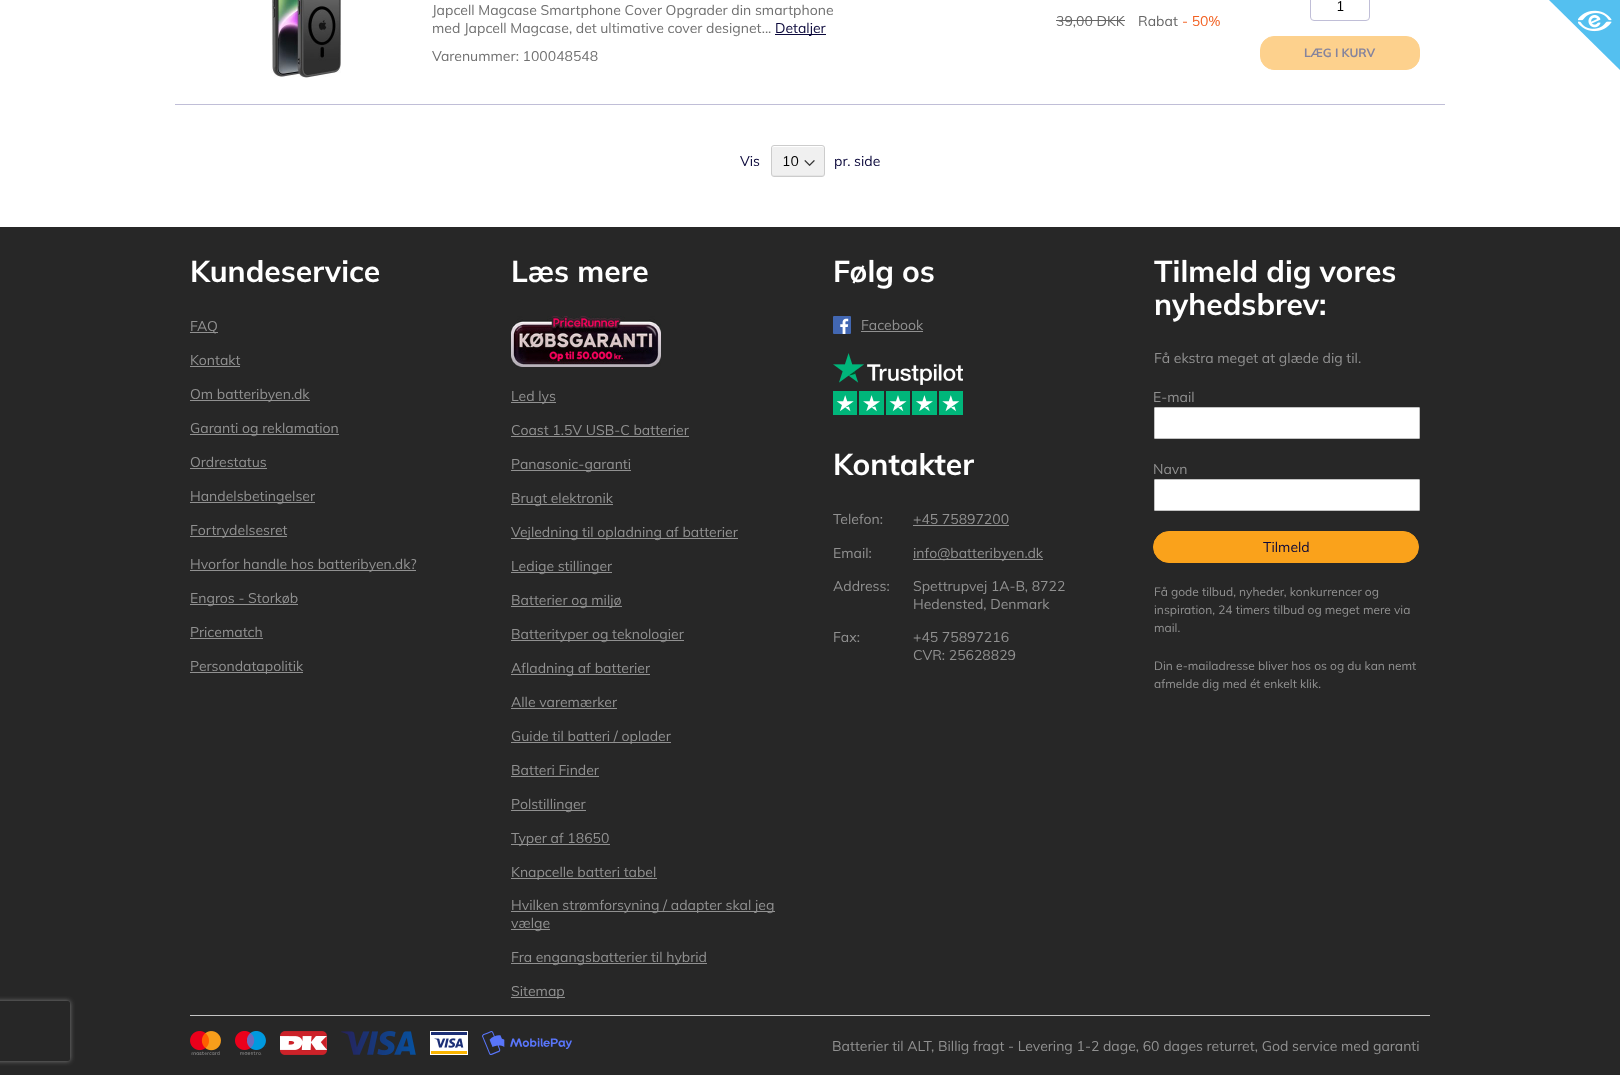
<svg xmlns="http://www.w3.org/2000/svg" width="1620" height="1075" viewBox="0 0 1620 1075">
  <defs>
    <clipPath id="clip1"><path d="M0 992H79V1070H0ZM-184 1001H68C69 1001 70 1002 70 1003V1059C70 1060 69 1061 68 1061H-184C-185 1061-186 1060-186 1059V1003C-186 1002-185 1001-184 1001Z" clip-rule="evenodd"/></clipPath>
    <filter id="blur1" x="-50%" y="-200%" width="200%" height="500%"><feGaussianBlur stdDeviation="2.5"/></filter>
  </defs>
  <rect width="100%" height="100%" fill="#ffffff"/>
  <rect x="0" y="227" width="1620" height="848" fill="#272727"/>
  <g clip-path="url(#clip1)">
    <rect x="-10" y="1001" width="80" height="60" rx="2" fill="#808080" filter="url(#blur1)"/>
  </g>
  <rect x="175" y="104" width="1270" height="1" fill="#c0bed7"/>
  <image x="271" y="0" width="70" height="78" href="img1.png"/>
  <text x="432" y="15" font-family="Mulish" font-size="14" fill="#707070">Japcell Magcase Smartphone Cover Opgrader din smartphone</text>
  <text x="432" y="33" font-family="Mulish" font-size="14" fill="#707070">med Japcell Magcase, det ultimative cover designet...</text>
  <rect x="775" y="34" width="51" height="1" fill="#0b083b"/>
  <text x="775" y="33" font-family="Mulish" font-size="14" fill="#0b083b">Detaljer</text>
  <text x="432" y="61" font-family="Mulish" font-size="14" fill="#707070">Varenummer: 100048548</text>
  <text x="1056" y="26" font-family="Mulish" font-size="14" fill="#666666">39,00 DKK</text>
  <rect x="1056" y="20" width="69" height="1" fill="#666666"/>
  <text x="1138" y="26" font-family="Mulish" font-size="14" fill="#666666">Rabat</text>
  <text x="1182" y="26" font-family="Mulish" font-size="14" fill="#f26122">- 50%</text>
  <rect x="1310.5" y="-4.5" width="59" height="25" rx="3.5" fill="none" stroke="#c0bed7"/>
  <text x="1336" y="11" font-family="Mulish" font-size="14" fill="#000000">1</text>
  <rect x="1260.5" y="36.5" width="159" height="33" rx="13.5" fill="#fdd18d" stroke="#fdd18d"/>
  <text x="1304" y="57" font-family="Mulish" font-size="12" font-weight="bold" fill="#85849d">LÆG I KURV</text>
  <text x="740" y="166" font-family="Mulish" font-size="14" fill="#0b083b">Vis</text>
  <rect x="772" y="146" width="52" height="30" rx="2" fill="#f0f0f0"/>
  <image x="804" y="160" width="11" height="6" href="img2.png"/>
  <path d="M772 173C772 178 778 176 782 176H814C818 176 824 178 824 173L823 175H773Z" fill="#e5e5e5"/>
  <path d="M774 147H822C823 147 824 148 824 149C824 144 818 146 814 146H782C778 146 772 144 772 149C772 148 773 147 774 147Z" fill="#ffffff"/>
  <rect x="771.5" y="145.5" width="53" height="31" rx="2.5" fill="none" stroke="#cccccc"/>
  <text x="782" y="166" font-family="Mulish" font-size="14" fill="#000000">10</text>
  <text x="834" y="166" font-family="Mulish" font-size="14" fill="#0b083b">pr. side</text>
  <path d="M1549 0L1620-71L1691 0L1620 70Z" fill="#54c0f0"/>
  <image x="1578" y="10" width="34" height="22" href="img3.png"/>
  <text x="190" y="282" font-family="Mulish" font-size="30" font-weight="bold" fill="#ffffff">Kundeservice</text>
  <rect x="190" y="332" width="28" height="1" fill="#919191"/>
  <text x="190" y="331" font-family="Mulish" font-size="14" fill="#919191">FAQ</text>
  <text x="190" y="365" font-family="Mulish" font-size="14" fill="#919191">Kontakt</text>
  <rect x="190" y="366" width="50" height="1" fill="#919191"/>
  <rect x="190" y="400" width="120" height="1" fill="#919191"/>
  <text x="190" y="399" font-family="Mulish" font-size="14" fill="#919191">Om batteribyen.dk</text>
  <rect x="190" y="434" width="149" height="1" fill="#919191"/>
  <text x="190" y="433" font-family="Mulish" font-size="14" fill="#919191">Garanti og reklamation</text>
  <text x="190" y="467" font-family="Mulish" font-size="14" fill="#919191">Ordrestatus</text>
  <rect x="190" y="468" width="77" height="1" fill="#919191"/>
  <rect x="190" y="502" width="125" height="1" fill="#919191"/>
  <text x="190" y="501" font-family="Mulish" font-size="14" fill="#919191">Handelsbetingelser</text>
  <rect x="190" y="536" width="97" height="1" fill="#919191"/>
  <text x="190" y="535" font-family="Mulish" font-size="14" fill="#919191">Fortrydelsesret</text>
  <rect x="190" y="570" width="226" height="1" fill="#919191"/>
  <text x="190" y="569" font-family="Mulish" font-size="14" fill="#919191">Hvorfor handle hos batteribyen.dk?</text>
  <rect x="190" y="604" width="108" height="1" fill="#919191"/>
  <text x="190" y="603" font-family="Mulish" font-size="14" fill="#919191">Engros - Storkøb</text>
  <text x="190" y="637" font-family="Mulish" font-size="14" fill="#919191">Pricematch</text>
  <rect x="190" y="638" width="73" height="1" fill="#919191"/>
  <rect x="190" y="672" width="113" height="1" fill="#919191"/>
  <text x="190" y="671" font-family="Mulish" font-size="14" fill="#919191">Persondatapolitik</text>
  <text x="511" y="282" font-family="Mulish" font-size="30" font-weight="bold" fill="#ffffff">Læs mere</text>
  <image x="511" y="316" width="150" height="51" href="img4.png"/>
  <rect x="511" y="402" width="45" height="1" fill="#919191"/>
  <text x="511" y="401" font-family="Mulish" font-size="14" fill="#919191">Led lys</text>
  <text x="511" y="435" font-family="Mulish" font-size="14" fill="#919191">Coast 1.5V USB-C batterier</text>
  <rect x="511" y="436" width="178" height="1" fill="#919191"/>
  <rect x="511" y="470" width="120" height="1" fill="#919191"/>
  <text x="511" y="469" font-family="Mulish" font-size="14" fill="#919191">Panasonic-garanti</text>
  <rect x="511" y="504" width="102" height="1" fill="#919191"/>
  <text x="511" y="503" font-family="Mulish" font-size="14" fill="#919191">Brugt elektronik</text>
  <rect x="511" y="538" width="227" height="1" fill="#919191"/>
  <text x="511" y="537" font-family="Mulish" font-size="14" fill="#919191">Vejledning til opladning af batterier</text>
  <rect x="511" y="572" width="101" height="1" fill="#919191"/>
  <text x="511" y="571" font-family="Mulish" font-size="14" fill="#919191">Ledige stillinger</text>
  <rect x="511" y="606" width="111" height="1" fill="#919191"/>
  <text x="511" y="605" font-family="Mulish" font-size="14" fill="#919191">Batterier og miljø</text>
  <rect x="511" y="640" width="173" height="1" fill="#919191"/>
  <text x="511" y="639" font-family="Mulish" font-size="14" fill="#919191">Batterityper og teknologier</text>
  <rect x="511" y="674" width="139" height="1" fill="#919191"/>
  <text x="511" y="673" font-family="Mulish" font-size="14" fill="#919191">Afladning af batterier</text>
  <text x="511" y="707" font-family="Mulish" font-size="14" fill="#919191">Alle varemærker</text>
  <rect x="511" y="708" width="106" height="1" fill="#919191"/>
  <rect x="511" y="742" width="160" height="1" fill="#919191"/>
  <text x="511" y="741" font-family="Mulish" font-size="14" fill="#919191">Guide til batteri / oplader</text>
  <text x="511" y="775" font-family="Mulish" font-size="14" fill="#919191">Batteri Finder</text>
  <rect x="511" y="776" width="88" height="1" fill="#919191"/>
  <rect x="511" y="810" width="75" height="1" fill="#919191"/>
  <text x="511" y="809" font-family="Mulish" font-size="14" fill="#919191">Polstillinger</text>
  <rect x="511" y="844" width="99" height="1" fill="#919191"/>
  <text x="511" y="843" font-family="Mulish" font-size="14" fill="#919191">Typer af 18650</text>
  <rect x="511" y="878" width="146" height="1" fill="#919191"/>
  <text x="511" y="877" font-family="Mulish" font-size="14" fill="#919191">Knapcelle batteri tabel</text>
  <rect x="511" y="911" width="264" height="1" fill="#919191"/>
  <text x="511" y="910" font-family="Mulish" font-size="14" fill="#919191">Hvilken strømforsyning / adapter skal jeg</text>
  <rect x="511" y="929" width="39" height="1" fill="#919191"/>
  <text x="511" y="928" font-family="Mulish" font-size="14" fill="#919191">vælge</text>
  <rect x="511" y="963" width="196" height="1" fill="#919191"/>
  <text x="511" y="962" font-family="Mulish" font-size="14" fill="#919191">Fra engangsbatterier til hybrid</text>
  <rect x="511" y="997" width="54" height="1" fill="#919191"/>
  <text x="511" y="996" font-family="Mulish" font-size="14" fill="#919191">Sitemap</text>
  <text x="833" y="282" font-family="Mulish" font-size="30" font-weight="bold" fill="#ffffff">Følg os</text>
  <image x="833" y="316" width="18" height="18" href="img5.png"/>
  <text x="861" y="330" font-family="Mulish" font-size="14" fill="#919191">Facebook</text>
  <rect x="861" y="331" width="62" height="1" fill="#919191"/>
  <image x="833" y="353" width="130" height="32" href="img6.png"/>
  <image x="833" y="391" width="130" height="24" href="img7.png"/>
  <text x="833" y="475" font-family="Mulish" font-size="30" font-weight="bold" fill="#ffffff">Kontakter</text>
  <text x="833" y="524" font-family="Mulish" font-size="14" fill="#919191">Telefon:</text>
  <text x="913" y="524" font-family="Mulish" font-size="14" fill="#919191">+45 75897200</text>
  <rect x="913" y="525" width="96" height="1" fill="#919191"/>
  <text x="833" y="558" font-family="Mulish" font-size="14" fill="#919191">Email:</text>
  <rect x="913" y="559" width="130" height="1" fill="#919191"/>
  <text x="913" y="558" font-family="Mulish" font-size="14" fill="#919191">info@batteribyen.dk</text>
  <text x="833" y="591" font-family="Mulish" font-size="14" fill="#919191">Address:</text>
  <text x="913" y="591" font-family="Mulish" font-size="14" fill="#919191">Spettrupvej 1A-B, 8722</text>
  <text x="913" y="609" font-family="Mulish" font-size="14" fill="#919191">Hedensted, Denmark</text>
  <text x="833" y="642" font-family="Mulish" font-size="14" fill="#919191">Fax:</text>
  <text x="913" y="642" font-family="Mulish" font-size="14" fill="#919191">+45 75897216</text>
  <text x="913" y="660" font-family="Mulish" font-size="14" fill="#919191">CVR: 25628829</text>
  <text x="1154" y="282" font-family="Mulish" font-size="30" font-weight="bold" fill="#ffffff">Tilmeld dig vores</text>
  <text x="1154" y="315" font-family="Mulish" font-size="30" font-weight="bold" fill="#ffffff">nyhedsbrev:</text>
  <text x="1154" y="363" font-family="Mulish" font-size="14" fill="#919191">Få ekstra meget at glæde dig til.</text>
  <text x="1153" y="402" font-family="Mulish" font-size="14" fill="#919191">E-mail</text>
  <rect x="1154.5" y="407.5" width="265" height="31" rx="0.5" fill="#ffffff" stroke="#c2c2c2"/>
  <text x="1153" y="474" font-family="Mulish" font-size="14" fill="#919191">Navn</text>
  <rect x="1154.5" y="479.5" width="265" height="31" rx="0.5" fill="#ffffff" stroke="#c2c2c2"/>
  <rect x="1153.5" y="531.5" width="265" height="31" rx="15.5" fill="#faa21b" stroke="#faa21b"/>
  <text x="1263" y="552" font-family="Mulish" font-size="14" fill="#0b083b">Tilmeld</text>
  <text x="1154" y="596" font-family="Mulish" font-size="12" fill="#919191">Få gode tilbud, nyheder, konkurrencer og</text>
  <text x="1154" y="614" font-family="Mulish" font-size="12" fill="#919191">inspiration, 24 timers tilbud og meget mere via</text>
  <text x="1154" y="632" font-family="Mulish" font-size="12" fill="#919191">mail.</text>
  <text x="1154" y="670" font-family="Mulish" font-size="12" fill="#919191">Din e-mailadresse bliver hos os og du kan nemt</text>
  <text x="1154" y="688" font-family="Mulish" font-size="12" fill="#919191">afmelde dig med ét enkelt klik.</text>
  <rect x="190" y="1015" width="1240" height="1" fill="#c4c4c4"/>
  <image x="190" y="1031" width="31" height="24" href="img8.png"/>
  <image x="235" y="1031" width="31" height="24" href="img9.png"/>
  <image x="280" y="1031" width="47" height="24" href="img10.png"/>
  <image x="341" y="1031" width="75" height="24" href="img11.png"/>
  <image x="430" y="1031" width="38" height="24" href="img12.png"/>
  <image x="482" y="1031" width="90" height="24" href="img13.png"/>
  <text x="832" y="1051" font-family="Mulish" font-size="14" fill="#919191">Batterier til ALT, Billig fragt - Levering 1-2 dage, 60 dages returret, God service med garanti</text>
</svg>
